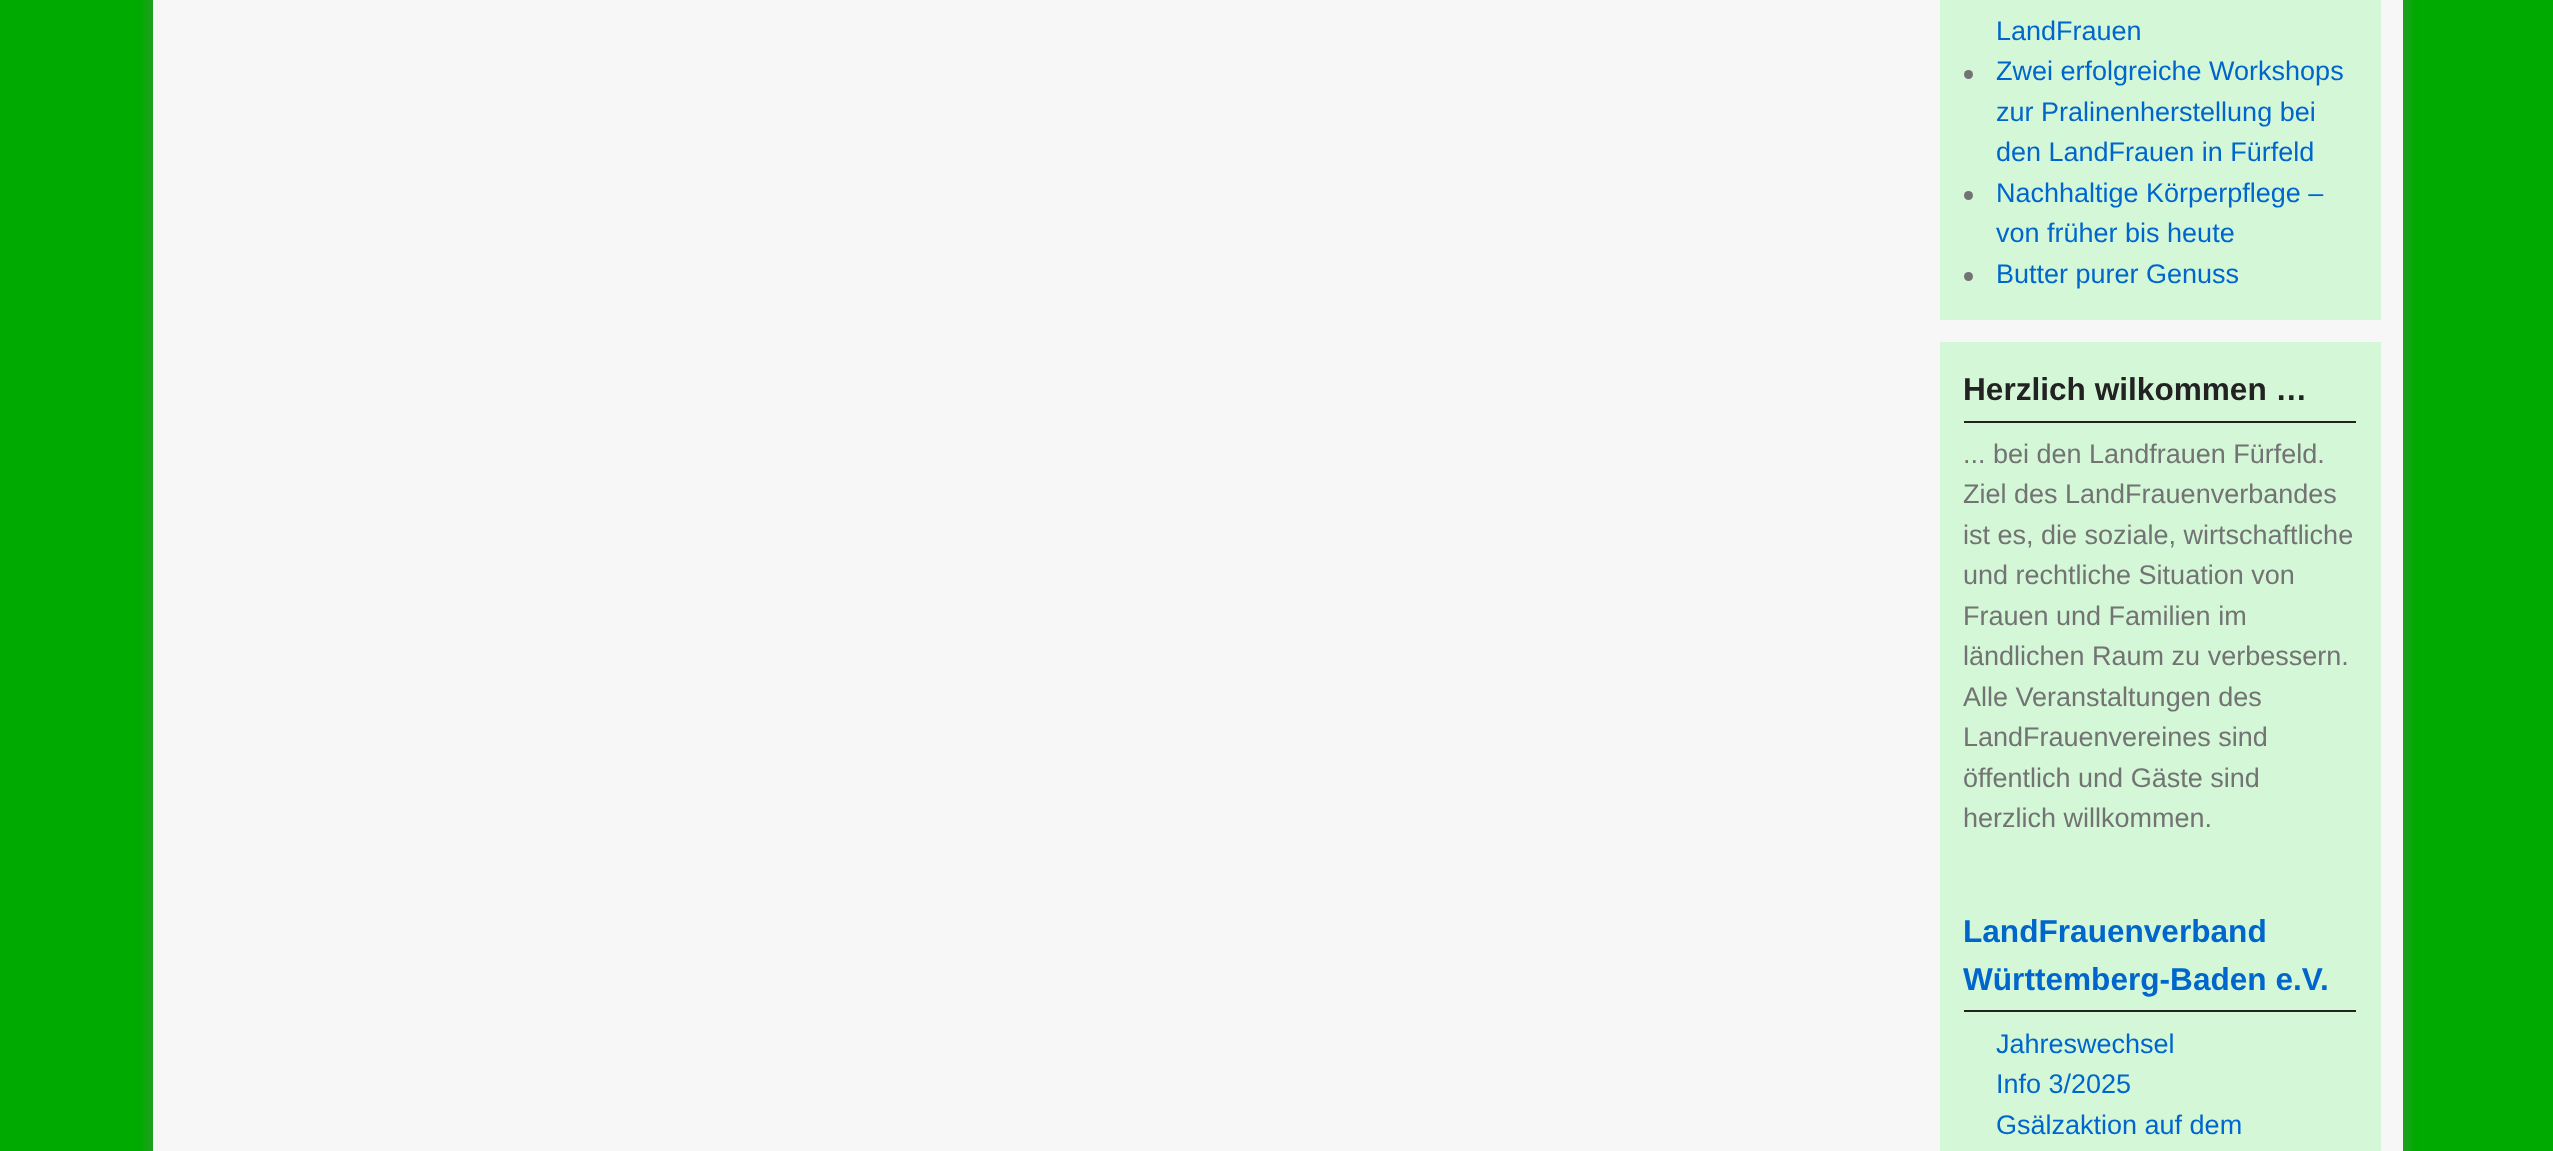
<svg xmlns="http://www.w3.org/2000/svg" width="2553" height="1151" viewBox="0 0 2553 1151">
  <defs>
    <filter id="blur1" x="-50%" y="-200%" width="200%" height="500%"><feGaussianBlur stdDeviation="3.5"/></filter>
  </defs>
  <rect width="100%" height="100%" fill="#00aa00"/>
  <rect x="146" y="-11" width="2264" height="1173" fill="#7f7f7f" fill-opacity="0.25" filter="url(#blur1)"/>
  <rect x="153" y="0" width="2250" height="1151" fill="#f7f7f7"/>
  <rect x="1940" y="0" width="441" height="320" fill="#d4f7d8"/>
  <text x="1996" y="40" font-family="Liberation Sans" font-size="27" fill="#0066cc">LandFrauen</text>
  <circle cx="1968.5" cy="74.5" r="4.5" fill="#737373"/>
  <text x="1996" y="80" font-family="Liberation Sans" font-size="27" fill="#0066cc">Zwei erfolgreiche Workshops</text>
  <text x="1996" y="121" font-family="Liberation Sans" font-size="27" fill="#0066cc">zur Pralinenherstellung bei</text>
  <text x="1996" y="161" font-family="Liberation Sans" font-size="27" fill="#0066cc">den LandFrauen in Fürfeld</text>
  <circle cx="1968.5" cy="195.5" r="4.5" fill="#737373"/>
  <text x="1996" y="202" font-family="Liberation Sans" font-size="27" fill="#0066cc">Nachhaltige Körperpflege –</text>
  <text x="1996" y="242" font-family="Liberation Sans" font-size="27" fill="#0066cc">von früher bis heute</text>
  <circle cx="1968.5" cy="276.5" r="4.5" fill="#737373"/>
  <text x="1996" y="283" font-family="Liberation Sans" font-size="27" fill="#0066cc">Butter purer Genuss</text>
  <rect x="1940" y="342" width="441" height="809" fill="#d4f7d8"/>
  <rect x="1964" y="421" width="392" height="2" fill="#222222"/>
  <text x="1963" y="400" font-family="Liberation Sans" font-size="31.6" font-weight="bold" fill="#222222">Herzlich wilkommen …</text>
  <text x="1963" y="463" font-family="Liberation Sans" font-size="27" fill="#737373">... bei den Landfrauen Fürfeld.</text>
  <text x="1963" y="503" font-family="Liberation Sans" font-size="27" fill="#737373">Ziel des LandFrauenverbandes</text>
  <text x="1963" y="544" font-family="Liberation Sans" font-size="27" fill="#737373">ist es, die soziale, wirtschaftliche</text>
  <text x="1963" y="584" font-family="Liberation Sans" font-size="27" fill="#737373">und rechtliche Situation von</text>
  <text x="1963" y="625" font-family="Liberation Sans" font-size="27" fill="#737373">Frauen und Familien im</text>
  <text x="1963" y="665" font-family="Liberation Sans" font-size="27" fill="#737373">ländlichen Raum zu verbessern.</text>
  <text x="1963" y="706" font-family="Liberation Sans" font-size="27" fill="#737373">Alle Veranstaltungen des</text>
  <text x="1963" y="746" font-family="Liberation Sans" font-size="27" fill="#737373">LandFrauenvereines sind</text>
  <text x="1963" y="787" font-family="Liberation Sans" font-size="27" fill="#737373">öffentlich und Gäste sind</text>
  <text x="1963" y="827" font-family="Liberation Sans" font-size="27" fill="#737373">herzlich willkommen.</text>
  <rect x="1964" y="1010" width="392" height="2" fill="#222222"/>
  <text x="1963" y="942" font-family="Liberation Sans" font-size="31.6" font-weight="bold" fill="#0066cc">LandFrauenverband</text>
  <text x="1963" y="990" font-family="Liberation Sans" font-size="31.6" font-weight="bold" fill="#0066cc">Württemberg-Baden e.V.</text>
  <text x="1996" y="1053" font-family="Liberation Sans" font-size="27" fill="#0066cc">Jahreswechsel</text>
  <text x="1996" y="1093" font-family="Liberation Sans" font-size="27" fill="#0066cc">Info 3/2025</text>
  <text x="1996" y="1134" font-family="Liberation Sans" font-size="27" fill="#0066cc">Gsälzaktion auf dem</text>
</svg>
